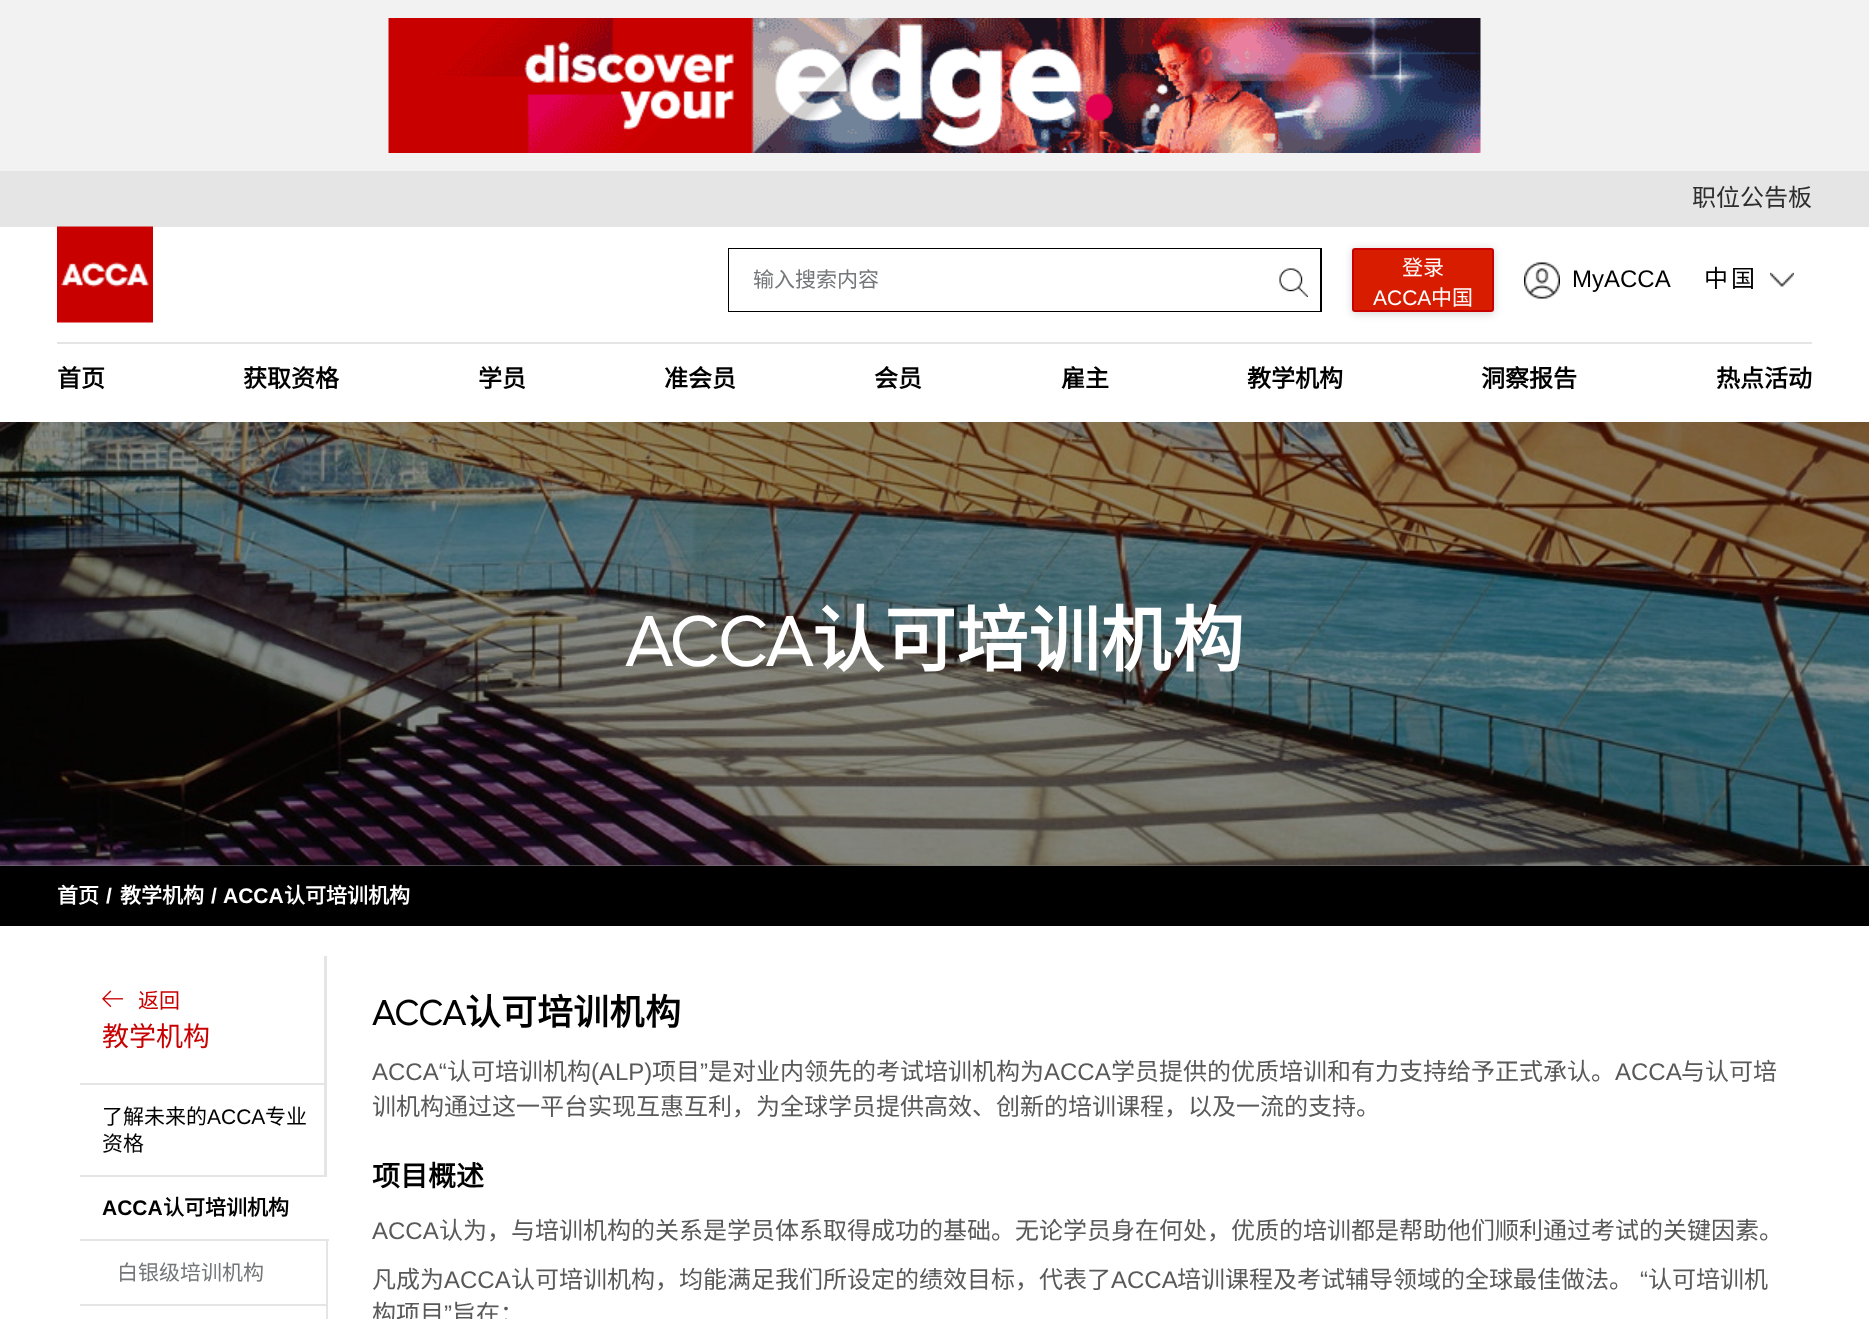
<svg xmlns="http://www.w3.org/2000/svg" width="1869" height="1319" viewBox="0 0 1869 1319">
  <defs>
    <filter id="blur1" x="-50%" y="-200%" width="200%" height="500%"><feGaussianBlur stdDeviation="4.5"/></filter>
  </defs>
  <rect width="100%" height="100%" fill="#ffffff"/>
  <rect x="0" y="0" width="1869" height="171" fill="#f2f2f2"/>
  <image x="388" y="18" width="1093" height="135" href="img1.png"/>
  <rect x="0" y="171" width="1869" height="56" fill="#e5e5e5"/>
  <text x="1692" y="206" font-family="Noto Sans CJK SC" font-size="24" fill="#2d2d2d">职位公告板</text>
  <image x="57" y="226" width="96" height="97" href="img2.png"/>
  <rect x="729" y="249" width="592" height="62" fill="none" stroke="#000000" stroke-width="2"/>
  <rect x="729" y="249" width="591" height="62" fill="#ffffff"/>
  <text x="753" y="287" font-family="Noto Sans CJK SC" font-size="21" fill="#747678">输入搜索内容</text>
  <image x="1279" y="268" width="29" height="29" href="img3.png"/>
  <rect x="1352" y="249" width="142" height="65" rx="3" fill="#000000" fill-opacity="0.16" filter="url(#blur1)"/>
  <rect x="1353" y="249" width="140" height="62" rx="2" fill="#d81c00" stroke="#c80000" stroke-width="2"/>
  <text x="1402" y="275" font-family="Noto Sans CJK SC" font-size="21" fill="#ffffff">登录</text>
  <text x="1373" y="305" font-family="Liberation Sans" font-size="21" fill="#ffffff">ACCA</text>
  <text x="1431" y="305" font-family="Noto Sans CJK SC" font-size="21" fill="#ffffff">中国</text>
  <image x="1524" y="262" width="36" height="37" href="img4.png"/>
  <text x="1572" y="287" font-family="Liberation Sans" font-size="24" fill="#000000">MyACCA</text>
  <image x="1770" y="272" width="24" height="15" href="img5.png"/>
  <text x="1704" y="287" font-family="Noto Sans CJK SC" font-size="24" letter-spacing="3" fill="#000000">中国</text>
  <rect x="57" y="342" width="1755" height="2" fill="#e5e5e5"/>
  <text x="57" y="387" font-family="Noto Sans CJK SC" font-size="24" font-weight="bold" fill="#000000">首页</text>
  <text x="243" y="387" font-family="Noto Sans CJK SC" font-size="24" font-weight="bold" fill="#000000">获取资格</text>
  <text x="478" y="387" font-family="Noto Sans CJK SC" font-size="24" font-weight="bold" fill="#000000">学员</text>
  <text x="664" y="387" font-family="Noto Sans CJK SC" font-size="24" font-weight="bold" fill="#000000">准会员</text>
  <text x="874" y="387" font-family="Noto Sans CJK SC" font-size="24" font-weight="bold" fill="#000000">会员</text>
  <text x="1061" y="387" font-family="Noto Sans CJK SC" font-size="24" font-weight="bold" fill="#000000">雇主</text>
  <text x="1247" y="387" font-family="Noto Sans CJK SC" font-size="24" font-weight="bold" fill="#000000">教学机构</text>
  <text x="1481" y="387" font-family="Noto Sans CJK SC" font-size="24" font-weight="bold" fill="#000000">洞察报告</text>
  <text x="1716" y="387" font-family="Noto Sans CJK SC" font-size="24" font-weight="bold" fill="#000000">热点活动</text>
  <rect x="0" y="865" width="1869" height="1" fill="#797979"/>
  <image x="0" y="422" width="1869" height="444" href="img6.png"/>
  <text x="625" y="666" font-family="Proxima Nova" font-size="72" font-weight="bold" fill="#ffffff">ACCA</text>
  <text x="812" y="666" font-family="Noto Sans SC" font-size="72" font-weight="bold" fill="#ffffff">认可培训机构</text>
  <rect x="0" y="866" width="1869" height="60" fill="#000000"/>
  <text x="57" y="903" font-family="Noto Sans CJK SC" font-size="21" font-weight="bold" fill="#ffffff">首页</text>
  <text x="106" y="903" font-family="Liberation Sans" font-size="21" font-weight="bold" fill="#ffffff">/</text>
  <text x="120" y="903" font-family="Noto Sans CJK SC" font-size="21" font-weight="bold" fill="#ffffff">教学机构</text>
  <text x="211" y="903" font-family="Liberation Sans" font-size="21" font-weight="bold" fill="#ffffff">/</text>
  <text x="223" y="903" font-family="Liberation Sans" font-size="21" font-weight="bold" fill="#ffffff">ACCA</text>
  <text x="284" y="903" font-family="Noto Sans CJK SC" font-size="21" font-weight="bold" fill="#ffffff">认可培训机构</text>
  <rect x="324" y="956" width="3" height="220" fill="#e5e5e5"/>
  <rect x="80" y="1083" width="247" height="2" fill="#e5e5e5"/>
  <image x="102" y="990" width="21" height="18" href="img7.png"/>
  <text x="138" y="1008" font-family="Noto Sans CJK SC" font-size="21" fill="#c80000">返回</text>
  <text x="102" y="1046" font-family="Noto Sans CJK SC" font-size="27" fill="#c80000">教学机构</text>
  <rect x="80" y="1175" width="247" height="2" fill="#e5e5e5"/>
  <text x="102" y="1124" font-family="Noto Sans CJK SC" font-size="21" fill="#000000">了解未来的</text>
  <text x="207" y="1124" font-family="Liberation Sans" font-size="21" fill="#000000">ACCA</text>
  <text x="265" y="1124" font-family="Noto Sans CJK SC" font-size="21" fill="#000000">专业</text>
  <text x="102" y="1151" font-family="Noto Sans CJK SC" font-size="21" fill="#000000">资格</text>
  <rect x="80" y="1239" width="249" height="2" fill="#e5e5e5"/>
  <text x="102" y="1215" font-family="Liberation Sans" font-size="21" font-weight="bold" fill="#000000">ACCA</text>
  <text x="163" y="1215" font-family="Noto Sans CJK SC" font-size="21" font-weight="bold" fill="#000000">认可培训机构</text>
  <rect x="326" y="1241" width="2" height="64" fill="#e5e5e5"/>
  <rect x="80" y="1304" width="247" height="2" fill="#e5e5e5"/>
  <text x="117" y="1280" font-family="Noto Sans CJK SC" font-size="21" fill="#747678">白银级培训机构</text>
  <rect x="326" y="1305" width="2" height="14" fill="#e5e5e5"/>
  <text x="372" y="1025" font-family="Proxima Nova" font-size="36" font-weight="bold" fill="#000000">ACCA</text>
  <text x="465" y="1025" font-family="Noto Sans SC" font-size="36" font-weight="bold" fill="#000000">认可培训机构</text>
  <text x="372" y="1080" font-family="Liberation Sans" font-size="24" fill="#595959">ACCA“</text>
  <text x="447" y="1080" font-family="Noto Sans CJK SC" font-size="24" fill="#595959">认可培训机构</text>
  <text x="591" y="1080" font-family="Liberation Sans" font-size="24" fill="#595959">(ALP)</text>
  <text x="652" y="1080" font-family="Noto Sans CJK SC" font-size="24" fill="#595959">项目</text>
  <text x="700" y="1080" font-family="Liberation Sans" font-size="24" fill="#595959">”</text>
  <text x="708" y="1080" font-family="Noto Sans CJK SC" font-size="24" fill="#595959">是对业内领先的考试培训机构为</text>
  <text x="1044" y="1080" font-family="Liberation Sans" font-size="24" fill="#595959">ACCA</text>
  <text x="1111" y="1080" font-family="Noto Sans CJK SC" font-size="24" fill="#595959">学员提供的优质培训和有力支持给予正式承认。</text>
  <text x="1615" y="1080" font-family="Liberation Sans" font-size="24" fill="#595959">ACCA</text>
  <text x="1681" y="1080" font-family="Noto Sans CJK SC" font-size="24" fill="#595959">与认可培</text>
  <text x="372" y="1115" font-family="Noto Sans CJK SC" font-size="24" fill="#595959">训机构通过这一平台实现互惠互利，为全球学员提供高效、创新的培训课程，以及一流的支持。</text>
  <text x="372" y="1186" font-family="Noto Sans CJK SC" font-size="28" font-weight="bold" fill="#000000">项目概述</text>
  <text x="372" y="1239" font-family="Liberation Sans" font-size="24" fill="#595959">ACCA</text>
  <text x="439" y="1239" font-family="Noto Sans CJK SC" font-size="24" fill="#595959">认为，与培训机构的关系是学员体系取得成功的基础。无论学员身在何处，优质的培训都是帮助他们顺利通过考试的关键因素。</text>
  <text x="372" y="1288" font-family="Noto Sans CJK SC" font-size="24" fill="#595959">凡成为</text>
  <text x="444" y="1288" font-family="Liberation Sans" font-size="24" fill="#595959">ACCA</text>
  <text x="511" y="1288" font-family="Noto Sans CJK SC" font-size="24" fill="#595959">认可培训机构，均能满足我们所设定的绩效目标，代表了</text>
  <text x="1111" y="1288" font-family="Liberation Sans" font-size="24" fill="#595959">ACCA</text>
  <text x="1177" y="1288" font-family="Noto Sans CJK SC" font-size="24" fill="#595959">培训课程及考试辅导领域的全球最佳做法。</text>
  <text x="1640" y="1288" font-family="Liberation Sans" font-size="24" fill="#595959">“</text>
  <text x="1648" y="1288" font-family="Noto Sans CJK SC" font-size="24" fill="#595959">认可培训机</text>
  <text x="372" y="1322" font-family="Noto Sans CJK SC" font-size="24" fill="#595959">构项目</text>
  <text x="444" y="1322" font-family="Liberation Sans" font-size="24" fill="#595959">”</text>
  <text x="452" y="1322" font-family="Noto Sans CJK SC" font-size="24" fill="#595959">旨在：</text>
</svg>
